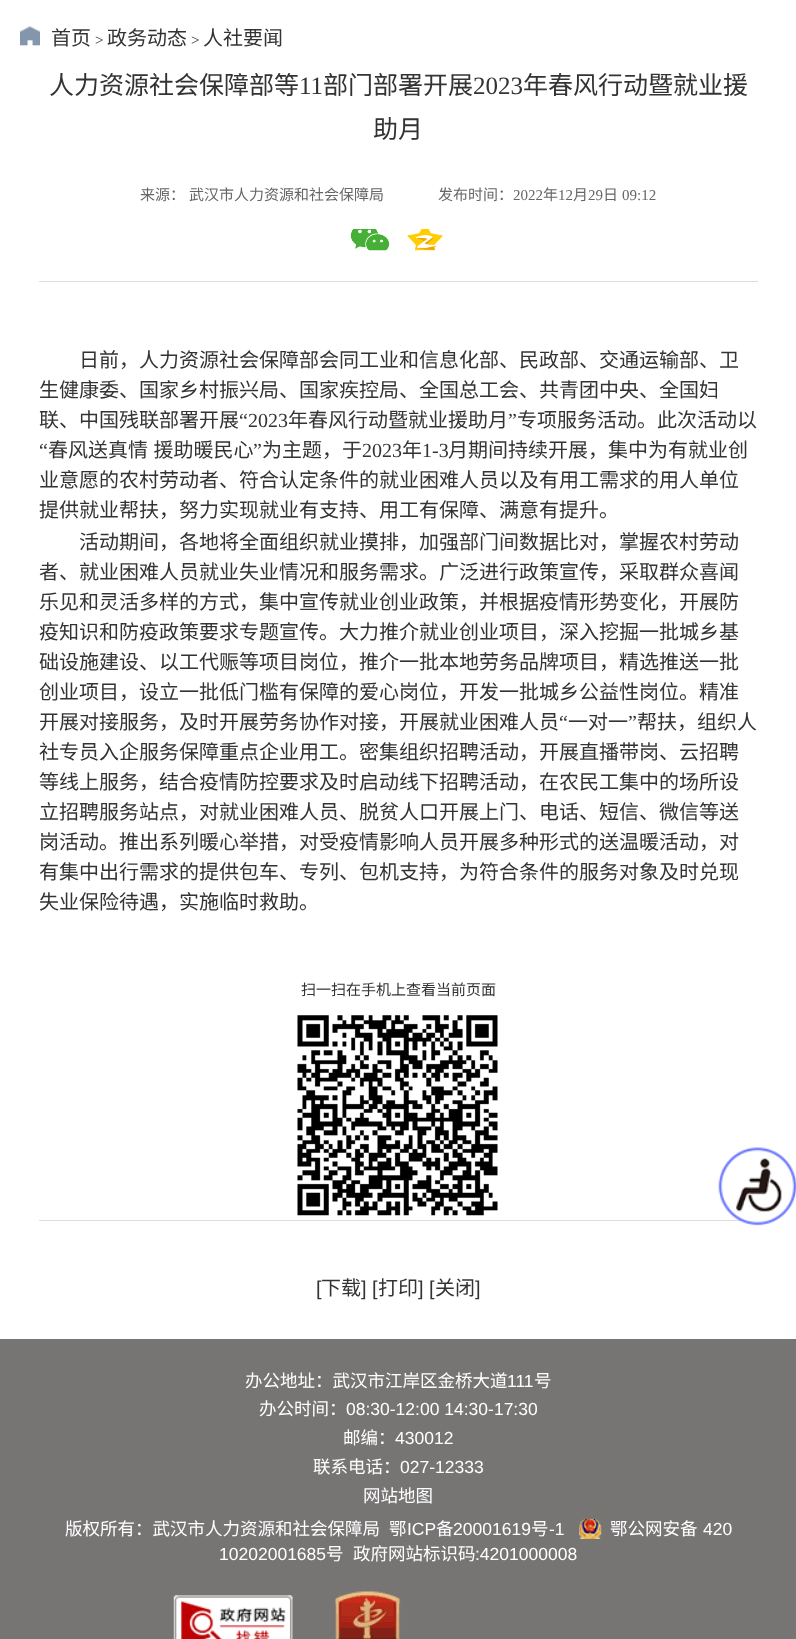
<svg xmlns="http://www.w3.org/2000/svg" width="796" height="1639" viewBox="0 0 796 1639">
  <rect width="100%" height="100%" fill="#ffffff"/>
  <image x="20" y="26" width="20" height="20" href="img1.png"/>
  <text x="51" y="45" font-family="Noto Sans CJK SC" font-size="20" fill="#333333">首页</text>
  <text x="95" y="45" font-family="Liberation Serif" font-size="15" fill="#333333">&gt;</text>
  <text x="107" y="45" font-family="Noto Sans CJK SC" font-size="20" fill="#333333">政务动态</text>
  <text x="191" y="45" font-family="Liberation Serif" font-size="15" fill="#333333">&gt;</text>
  <text x="203" y="45" font-family="Noto Sans CJK SC" font-size="20" fill="#333333">人社要闻</text>
  <rect x="39" y="281" width="719" height="1" fill="#dcddde"/>
  <text x="49" y="94" font-family="Noto Sans CJK SC" font-size="25" fill="#333333">人力资源社会保障部等</text>
  <text x="299" y="94" font-family="Liberation Serif" font-size="25" fill="#333333">11</text>
  <text x="323" y="94" font-family="Noto Sans CJK SC" font-size="25" fill="#333333">部门部署开展</text>
  <text x="473" y="94" font-family="Liberation Serif" font-size="25" fill="#333333">2023</text>
  <text x="523" y="94" font-family="Noto Sans CJK SC" font-size="25" fill="#333333">年春风行动暨就业援</text>
  <text x="373" y="138" font-family="Noto Sans CJK SC" font-size="25" fill="#333333">助月</text>
  <text x="140" y="200" font-family="Noto Sans CJK SC" font-size="15" fill="#666666">来源：</text>
  <text x="189" y="200" font-family="Noto Sans CJK SC" font-size="15" fill="#666666">武汉市人力资源和社会保障局</text>
  <text x="438" y="200" font-family="Noto Sans CJK SC" font-size="15" fill="#666666">发布时间：</text>
  <text x="513" y="200" font-family="Liberation Serif" font-size="15" fill="#666666">2022</text>
  <text x="543" y="200" font-family="Noto Sans CJK SC" font-size="15" fill="#666666">年</text>
  <text x="558" y="200" font-family="Liberation Serif" font-size="15" fill="#666666">12</text>
  <text x="573" y="200" font-family="Noto Sans CJK SC" font-size="15" fill="#666666">月</text>
  <text x="588" y="200" font-family="Liberation Serif" font-size="15" fill="#666666">29</text>
  <text x="603" y="200" font-family="Noto Sans CJK SC" font-size="15" fill="#666666">日</text>
  <text x="622" y="200" font-family="Liberation Serif" font-size="15" fill="#666666">09:12</text>
  <image x="350" y="229" width="40" height="22" href="img2.png"/>
  <image x="407" y="229" width="36" height="22" href="img3.png"/>
  <text x="79" y="367" font-family="Noto Sans CJK SC" font-size="20" fill="#333333">日前，人力资源社会保障部会同工业和信息化部、民政部、交通运输部、卫</text>
  <text x="39" y="397" font-family="Noto Sans CJK SC" font-size="20" fill="#333333">生健康委、国家乡村振兴局、国家疾控局、全国总工会、共青团中央、全国妇</text>
  <text x="39" y="427" font-family="Noto Sans CJK SC" font-size="20" fill="#333333">联、中国残联部署开展</text>
  <text x="239" y="427" font-family="Liberation Serif" font-size="20" fill="#333333">“2023</text>
  <text x="288" y="427" font-family="Noto Sans CJK SC" font-size="20" fill="#333333">年春风行动暨就业援助月</text>
  <text x="508" y="427" font-family="Liberation Serif" font-size="20" fill="#333333">”</text>
  <text x="517" y="427" font-family="Noto Sans CJK SC" font-size="20" fill="#333333">专项服务活动。此次活动以</text>
  <text x="39" y="457" font-family="Liberation Serif" font-size="20" fill="#333333">“</text>
  <text x="48" y="457" word-spacing="1" font-family="Noto Sans CJK SC" font-size="20" fill="#333333">春风送真情 援助暖民心</text>
  <text x="253" y="457" font-family="Liberation Serif" font-size="20" fill="#333333">”</text>
  <text x="262" y="457" font-family="Noto Sans CJK SC" font-size="20" fill="#333333">为主题，于</text>
  <text x="362" y="457" font-family="Liberation Serif" font-size="20" fill="#333333">2023</text>
  <text x="402" y="457" font-family="Noto Sans CJK SC" font-size="20" fill="#333333">年</text>
  <text x="422" y="457" font-family="Liberation Serif" font-size="20" fill="#333333">1-3</text>
  <text x="448" y="457" font-family="Noto Sans CJK SC" font-size="20" fill="#333333">月期间持续开展，集中为有就业创</text>
  <text x="39" y="487" font-family="Noto Sans CJK SC" font-size="20" fill="#333333">业意愿的农村劳动者、符合认定条件的就业困难人员以及有用工需求的用人单位</text>
  <text x="39" y="517" font-family="Noto Sans CJK SC" font-size="20" fill="#333333">提供就业帮扶，努力实现就业有支持、用工有保障、满意有提升。</text>
  <text x="79" y="549" font-family="Noto Sans CJK SC" font-size="20" fill="#333333">活动期间，各地将全面组织就业摸排，加强部门间数据比对，掌握农村劳动</text>
  <text x="39" y="579" font-family="Noto Sans CJK SC" font-size="20" fill="#333333">者、就业困难人员就业失业情况和服务需求。广泛进行政策宣传，采取群众喜闻</text>
  <text x="39" y="609" font-family="Noto Sans CJK SC" font-size="20" fill="#333333">乐见和灵活多样的方式，集中宣传就业创业政策，并根据疫情形势变化，开展防</text>
  <text x="39" y="639" font-family="Noto Sans CJK SC" font-size="20" fill="#333333">疫知识和防疫政策要求专题宣传。大力推介就业创业项目，深入挖掘一批城乡基</text>
  <text x="39" y="669" font-family="Noto Sans CJK SC" font-size="20" fill="#333333">础设施建设、以工代赈等项目岗位，推介一批本地劳务品牌项目，精选推送一批</text>
  <text x="39" y="699" font-family="Noto Sans CJK SC" font-size="20" fill="#333333">创业项目，设立一批低门槛有保障的爱心岗位，开发一批城乡公益性岗位。精准</text>
  <text x="39" y="729" font-family="Noto Sans CJK SC" font-size="20" fill="#333333">开展对接服务，及时开展劳务协作对接，开展就业困难人员</text>
  <text x="559" y="729" font-family="Liberation Serif" font-size="20" fill="#333333">“</text>
  <text x="568" y="729" font-family="Noto Sans CJK SC" font-size="20" fill="#333333">一对一</text>
  <text x="628" y="729" font-family="Liberation Serif" font-size="20" fill="#333333">”</text>
  <text x="637" y="729" font-family="Noto Sans CJK SC" font-size="20" fill="#333333">帮扶，组织人</text>
  <text x="39" y="759" font-family="Noto Sans CJK SC" font-size="20" fill="#333333">社专员入企服务保障重点企业用工。密集组织招聘活动，开展直播带岗、云招聘</text>
  <text x="39" y="789" font-family="Noto Sans CJK SC" font-size="20" fill="#333333">等线上服务，结合疫情防控要求及时启动线下招聘活动，在农民工集中的场所设</text>
  <text x="39" y="819" font-family="Noto Sans CJK SC" font-size="20" fill="#333333">立招聘服务站点，对就业困难人员、脱贫人口开展上门、电话、短信、微信等送</text>
  <text x="39" y="849" font-family="Noto Sans CJK SC" font-size="20" fill="#333333">岗活动。推出系列暖心举措，对受疫情影响人员开展多种形式的送温暖活动，对</text>
  <text x="39" y="879" font-family="Noto Sans CJK SC" font-size="20" fill="#333333">有集中出行需求的提供包车、专列、包机支持，为符合条件的服务对象及时兑现</text>
  <text x="39" y="909" font-family="Noto Sans CJK SC" font-size="20" fill="#333333">失业保险待遇，实施临时救助。</text>
  <rect x="39" y="1220" width="703" height="1" fill="#dddddd"/>
  <text x="301" y="995" font-family="Noto Sans CJK SC" font-size="15" fill="#333333">扫一扫在手机上查看当前页面</text>
  <image x="297" y="1015" width="201" height="201" href="img4.png"/>
  <text x="316" y="1295" font-family="Liberation Sans" font-size="20" fill="#333333">[</text>
  <text x="321" y="1295" font-family="Noto Sans CJK SC" font-size="20" fill="#333333">下载</text>
  <text x="361" y="1295" font-family="Liberation Sans" font-size="20" fill="#333333">] [</text>
  <text x="378" y="1295" font-family="Noto Sans CJK SC" font-size="20" fill="#333333">打印</text>
  <text x="418" y="1295" font-family="Liberation Sans" font-size="20" fill="#333333">] [</text>
  <text x="435" y="1295" font-family="Noto Sans CJK SC" font-size="20" fill="#333333">关闭</text>
  <text x="475" y="1295" font-family="Liberation Sans" font-size="20" fill="#333333">]</text>
  <image x="718" y="1147" width="78" height="79" href="img5.png"/>
  <rect x="0" y="1339" width="796" height="300" fill="#777474"/>
  <text x="245" y="1387" font-family="Noto Sans CJK SC" font-size="17.5" fill="#ffffff">办公地址：武汉市江岸区金桥大道</text>
  <text x="507" y="1387" font-family="Liberation Sans" font-size="17.5" fill="#ffffff">111</text>
  <text x="534" y="1387" font-family="Noto Sans CJK SC" font-size="17.5" fill="#ffffff">号</text>
  <text x="259" y="1415" font-family="Noto Sans CJK SC" font-size="17.5" fill="#ffffff">办公时间：</text>
  <text x="346" y="1415" font-family="Liberation Sans" font-size="17.5" fill="#ffffff">08:30-12:00 14:30-17:30</text>
  <text x="343" y="1444" font-family="Noto Sans CJK SC" font-size="17.5" fill="#ffffff">邮编：</text>
  <text x="395" y="1444" font-family="Liberation Sans" font-size="17.5" fill="#ffffff">430012</text>
  <text x="313" y="1473" font-family="Noto Sans CJK SC" font-size="17.5" fill="#ffffff">联系电话：</text>
  <text x="400" y="1473" font-family="Liberation Sans" font-size="17.5" fill="#ffffff">027-12333</text>
  <text x="363" y="1502" font-family="Noto Sans CJK SC" font-size="17.5" fill="#ffffff">网站地图</text>
  <text x="65" y="1535" font-family="Noto Sans CJK SC" font-size="17.5" fill="#ffffff">版权所有：武汉市人力资源和社会保障局</text>
  <text x="389" y="1535" font-family="Noto Sans CJK SC" font-size="17.5" fill="#ffffff">鄂</text>
  <text x="407" y="1535" font-family="Liberation Sans" font-size="17.5" fill="#ffffff">ICP</text>
  <text x="436" y="1535" font-family="Noto Sans CJK SC" font-size="17.5" fill="#ffffff">备</text>
  <text x="453" y="1535" font-family="Liberation Sans" font-size="17.5" fill="#ffffff">20001619</text>
  <text x="531" y="1535" font-family="Noto Sans CJK SC" font-size="17.5" fill="#ffffff">号</text>
  <text x="549" y="1535" font-family="Liberation Sans" font-size="17.5" fill="#ffffff">-1</text>
  <image x="579" y="1519" width="23" height="20" href="img6.png"/>
  <text x="610" y="1535" font-family="Noto Sans CJK SC" font-size="17.5" fill="#ffffff">鄂公网安备</text>
  <text x="703" y="1535" font-family="Liberation Sans" font-size="17.5" fill="#ffffff">420</text>
  <text x="219" y="1560" font-family="Liberation Sans" font-size="17.5" fill="#ffffff">10202001685</text>
  <text x="326" y="1560" font-family="Noto Sans CJK SC" font-size="17.5" fill="#ffffff">号</text>
  <text x="353" y="1560" font-family="Noto Sans CJK SC" font-size="17.5" fill="#ffffff">政府网站标识码</text>
  <text x="475" y="1560" font-family="Liberation Sans" font-size="17.5" fill="#ffffff">:4201000008</text>
  <image x="173" y="1595" width="120" height="44" href="img7.png"/>
  <image x="335" y="1591" width="66" height="48" href="img8.png"/>
</svg>
